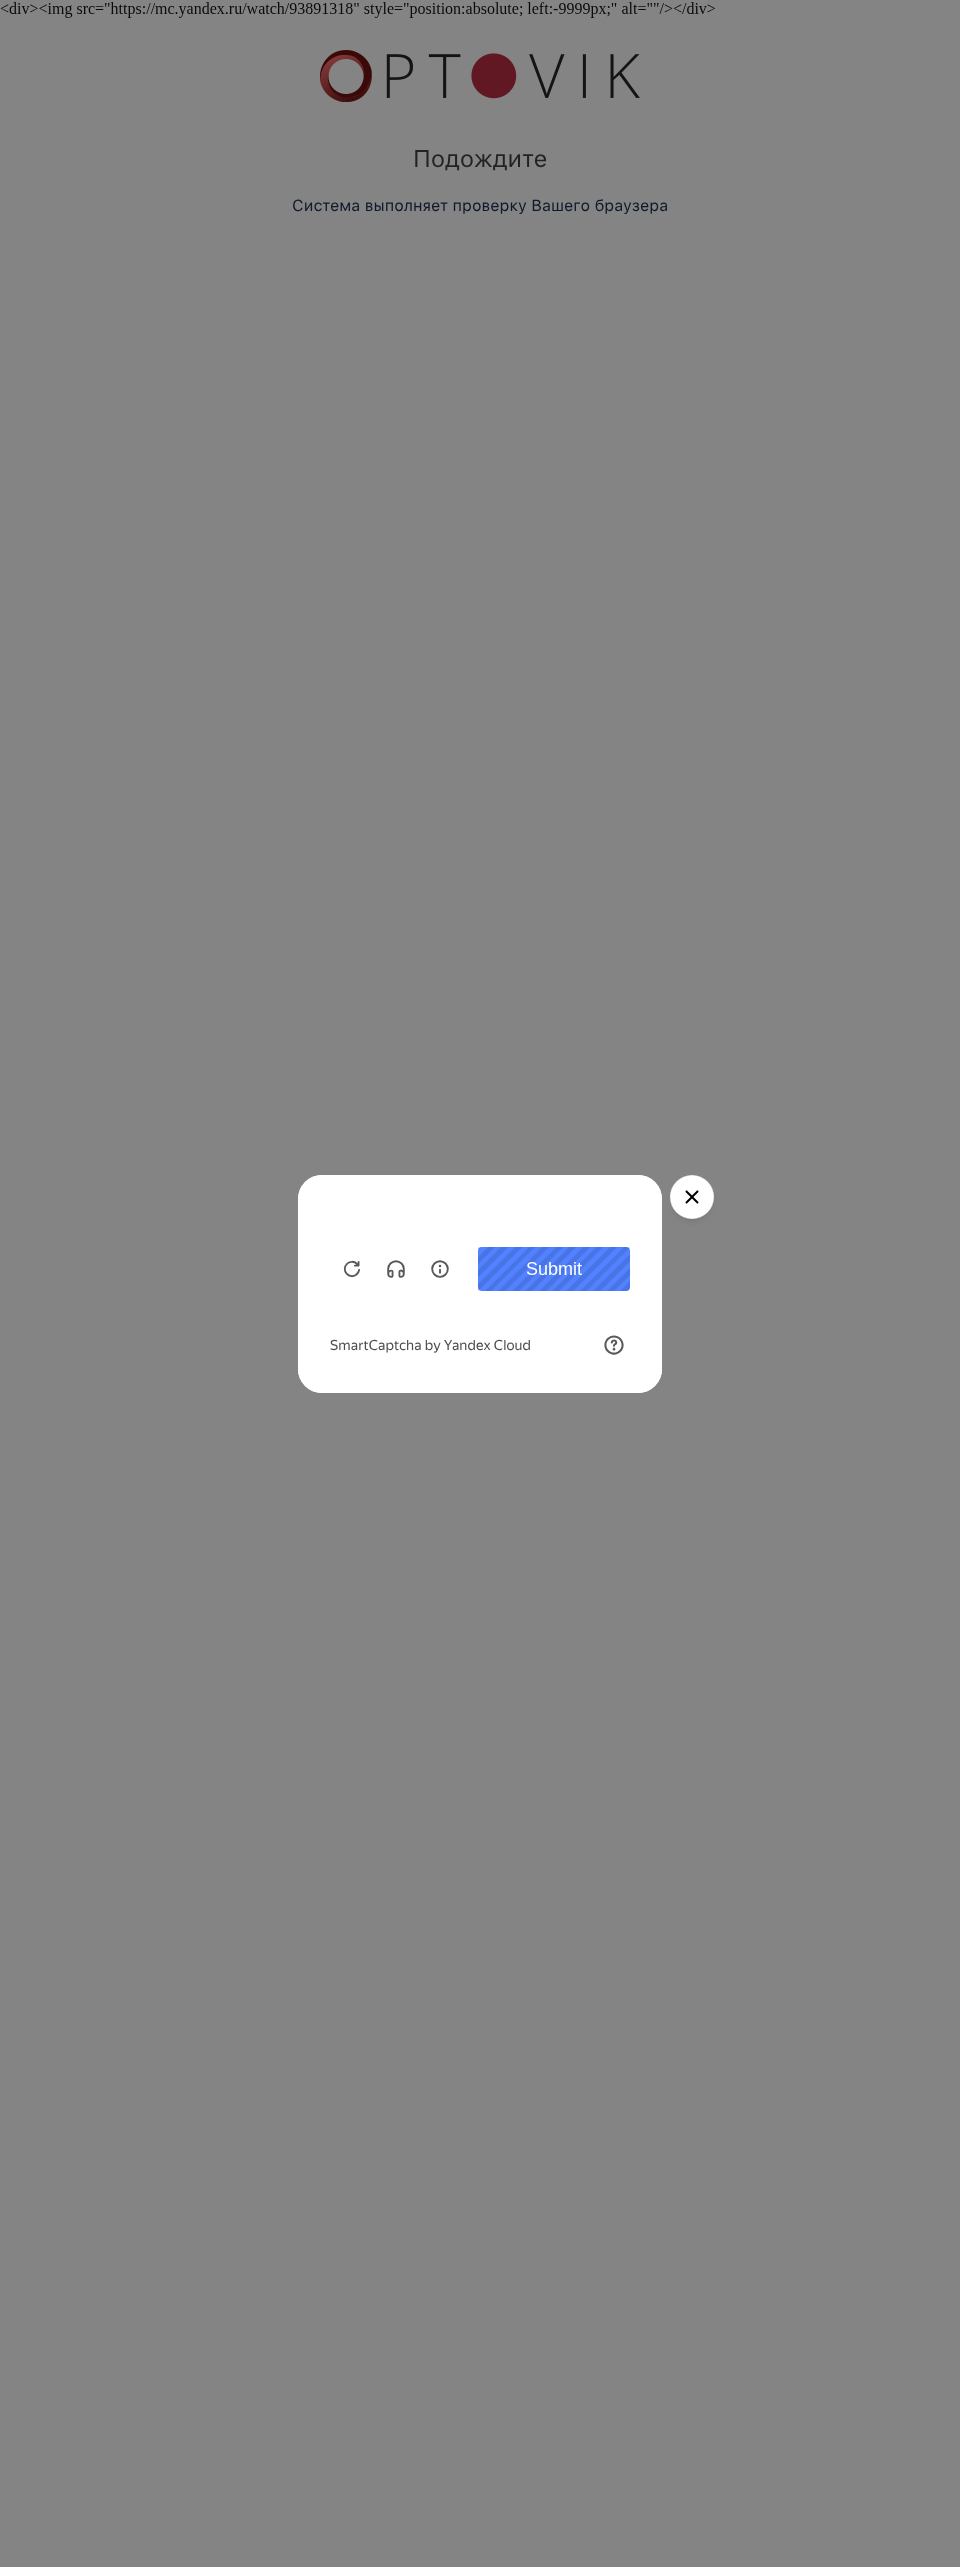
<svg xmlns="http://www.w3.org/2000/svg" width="960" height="2567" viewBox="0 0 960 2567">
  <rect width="100%" height="100%" fill="#999999"/>
  <image x="320" y="50" width="320" height="52" href="img2.png"/>
  <text x="413" y="167" font-family="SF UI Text" font-size="24" fill="#1f1f1f">Подождите</text>
  <text x="292" y="211" font-family="SF UI Text" font-size="16" fill="#061329">Система выполняет проверку Вашего браузера</text>
  <image x="0" y="0" width="960" height="2567" href="img1.png"/>
</svg>
